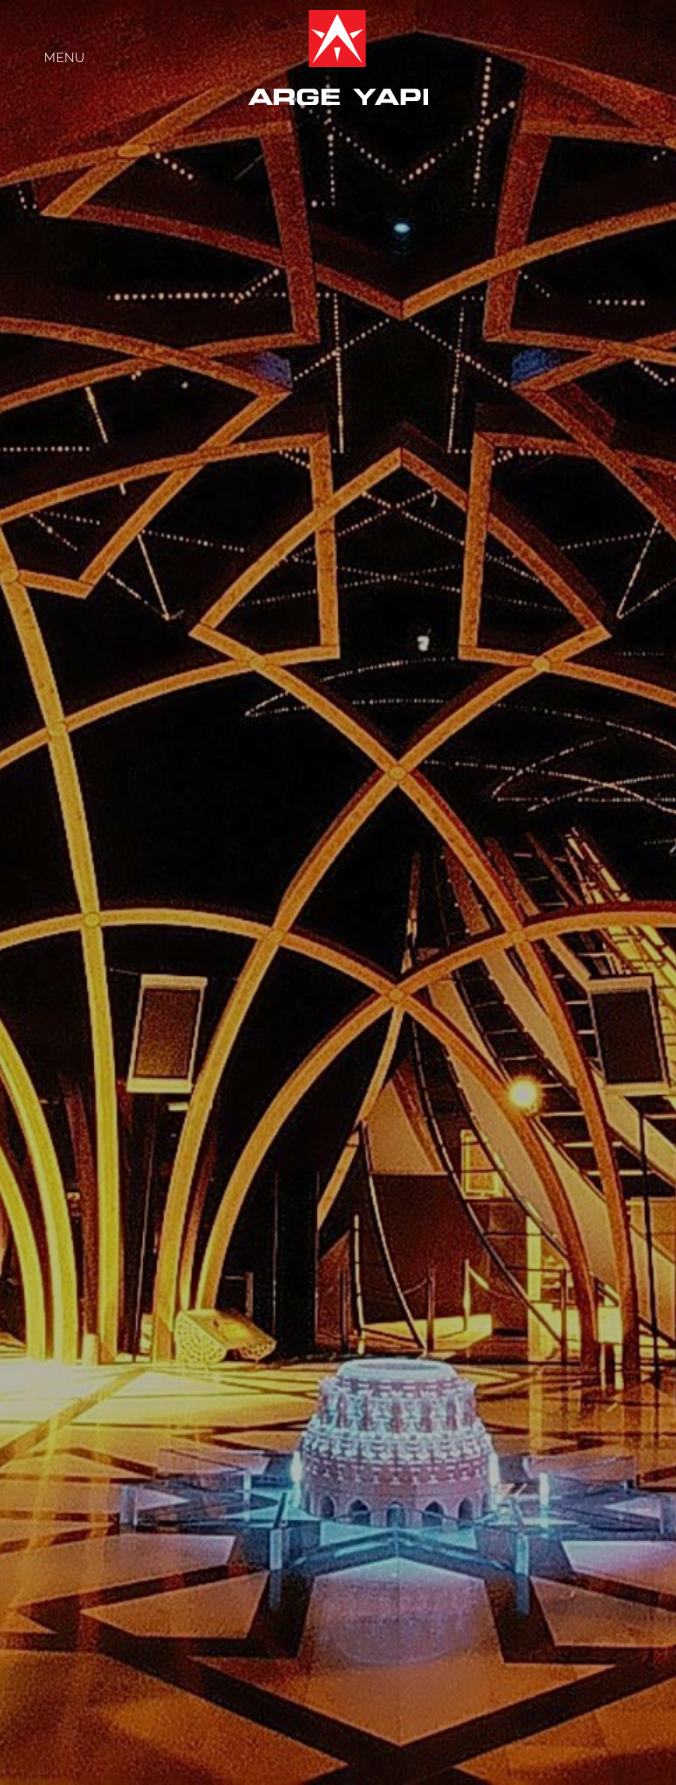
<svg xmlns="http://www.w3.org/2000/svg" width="676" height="1785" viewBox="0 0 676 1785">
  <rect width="100%" height="100%" fill="#ffffff"/>
  <image x="0" y="0" width="676" height="1785" href="img1.png"/>
  <text x="44" y="62" font-family="Raleway" font-size="13" font-weight="100" letter-spacing="0.5" fill="#dacece">MENU</text>
  <image x="248" y="10" width="180" height="95" href="img2.png"/>
</svg>
